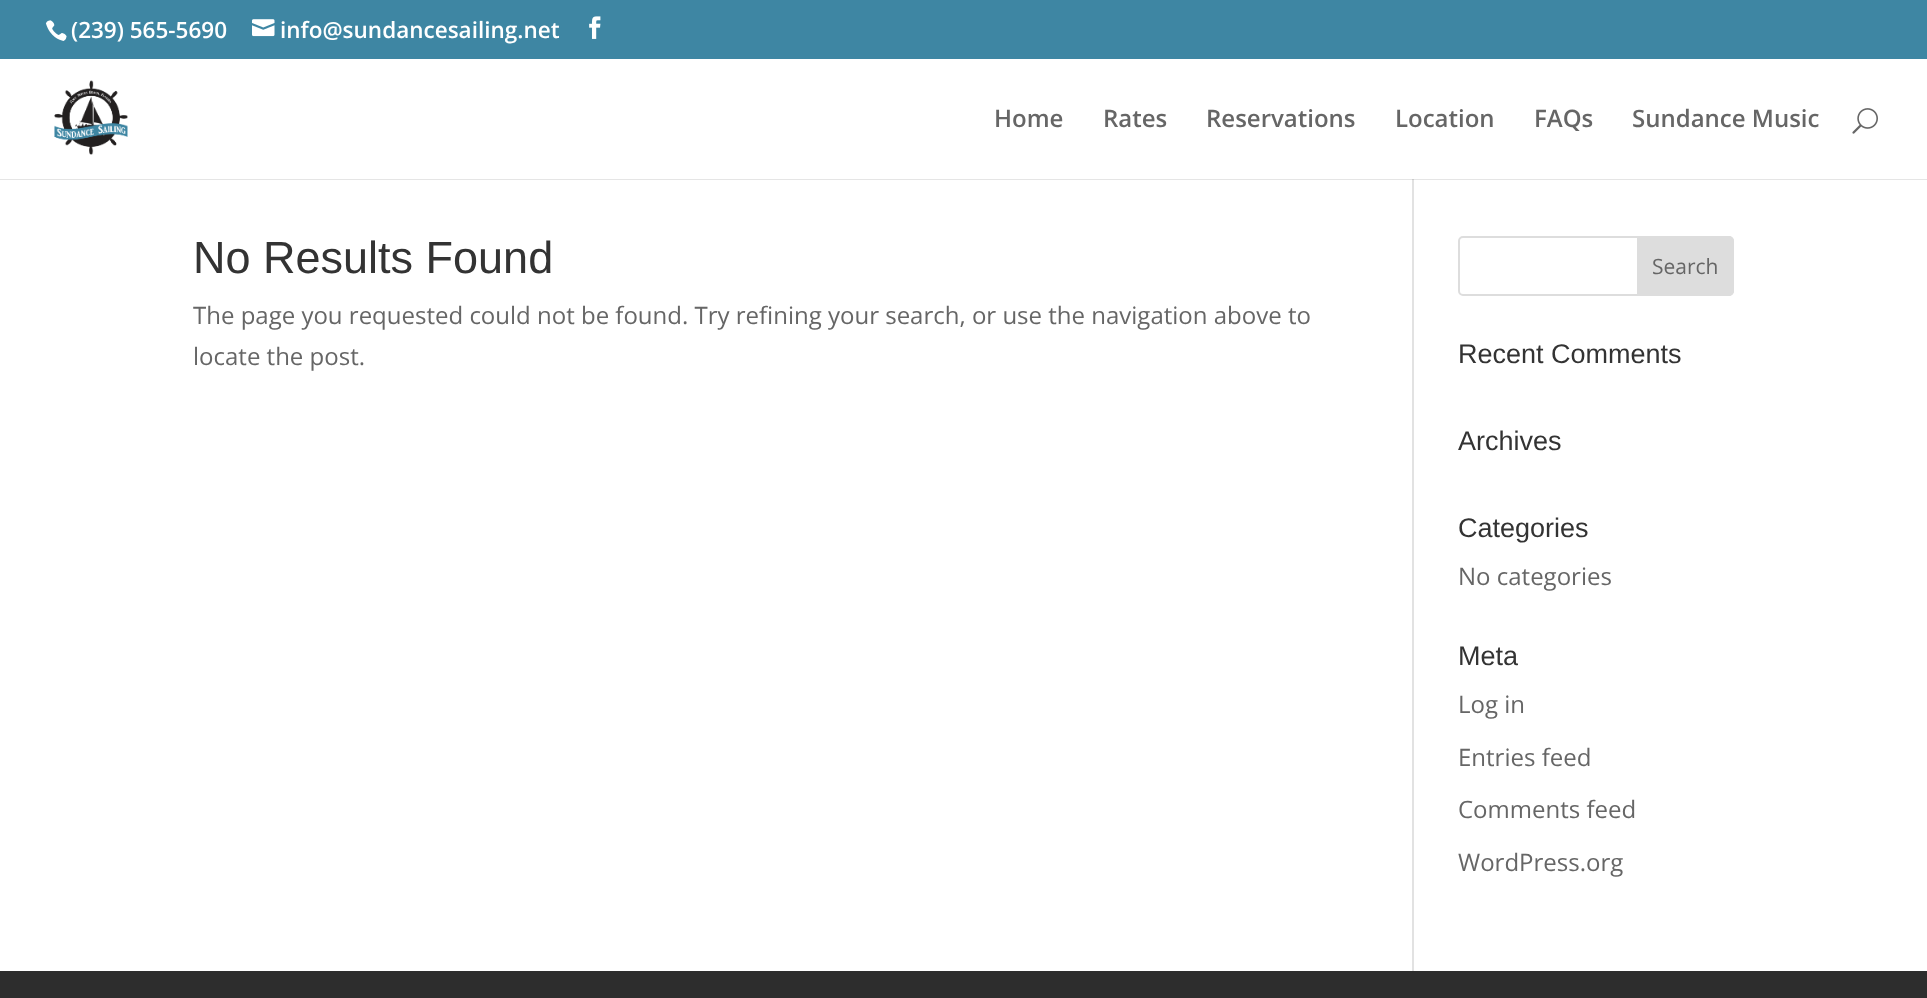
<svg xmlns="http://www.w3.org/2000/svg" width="1927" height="998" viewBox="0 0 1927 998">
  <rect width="100%" height="100%" fill="#3e86a3"/>
  <image x="45" y="20" width="22" height="21" href="img1.png"/>
  <text x="71" y="38" font-family="Open Sans" font-size="22.5" font-weight="600" fill="#ffffff">(239) 565-5690</text>
  <image x="252" y="19" width="23" height="18" href="img2.png"/>
  <text x="280" y="38" font-family="Open Sans" font-size="22.5" font-weight="600" fill="#ffffff">info@sundancesailing.net</text>
  <image x="589" y="16" width="12" height="23" href="img3.png"/>
  <rect x="0" y="179" width="1927" height="792" fill="#ffffff"/>
  <rect x="1412" y="179" width="2" height="792" fill="#e2e2e2"/>
  <path d="M0 178V180H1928V60V178Z" fill="#000000" fill-opacity="0.1"/>
  <rect x="0" y="59" width="1927" height="120" fill="#ffffff"/>
  <image x="54" y="80" width="74" height="75" href="img4.png"/>
  <text x="994" y="127" font-family="Open Sans" font-size="24" font-weight="600" fill="#666666">Home</text>
  <text x="1103" y="127" font-family="Open Sans" font-size="24" font-weight="600" fill="#666666">Rates</text>
  <text x="1206" y="127" font-family="Open Sans" font-size="24" font-weight="600" fill="#666666">Reservations</text>
  <text x="1395" y="127" font-family="Open Sans" font-size="24" font-weight="600" fill="#666666">Location</text>
  <text x="1534" y="127" font-family="Open Sans" font-size="24" font-weight="600" fill="#666666">FAQs</text>
  <text x="1632" y="127" font-family="Open Sans" font-size="24" font-weight="600" fill="#666666">Sundance Music</text>
  <image x="1852" y="108" width="26" height="26" href="img5.png"/>
  <text x="193" y="273" font-family="Liberation Sans" font-size="45" fill="#333333">No Results Found</text>
  <text x="193" y="324" font-family="Open Sans" font-size="24" fill="#666666">The page you requested could not be found. Try refining your search, or use the navigation above to</text>
  <text x="193" y="365" font-family="Open Sans" font-size="24" fill="#666666">locate the post.</text>
  <rect x="1459" y="237" width="274" height="58" rx="4" fill="none" stroke="#dddddd" stroke-width="2"/>
  <path d="M1638 237H1729C1731 237 1733 239 1733 241V291C1733 293 1731 295 1729 295H1638Z" fill="#dddddd" stroke="#dddddd" stroke-width="2"/>
  <text x="1652" y="274" font-family="Open Sans" font-size="21" fill="#666666">Search</text>
  <text x="1458" y="363" font-family="Liberation Sans" font-size="27" fill="#333333">Recent Comments</text>
  <text x="1458" y="450" font-family="Liberation Sans" font-size="27" fill="#333333">Archives</text>
  <text x="1458" y="537" font-family="Liberation Sans" font-size="27" fill="#333333">Categories</text>
  <text x="1458" y="585" font-family="Open Sans" font-size="24" fill="#666666">No categories</text>
  <text x="1458" y="665" font-family="Liberation Sans" font-size="27" fill="#333333">Meta</text>
  <text x="1458" y="713" font-family="Open Sans" font-size="24" fill="#666666">Log in</text>
  <text x="1458" y="766" font-family="Open Sans" font-size="24" fill="#666666">Entries feed</text>
  <text x="1458" y="818" font-family="Open Sans" font-size="24" fill="#666666">Comments feed</text>
  <text x="1458" y="871" font-family="Open Sans" font-size="24" fill="#666666">WordPress.org</text>
  <rect x="0" y="971" width="1927" height="27" fill="#2d2d2d"/>
</svg>
